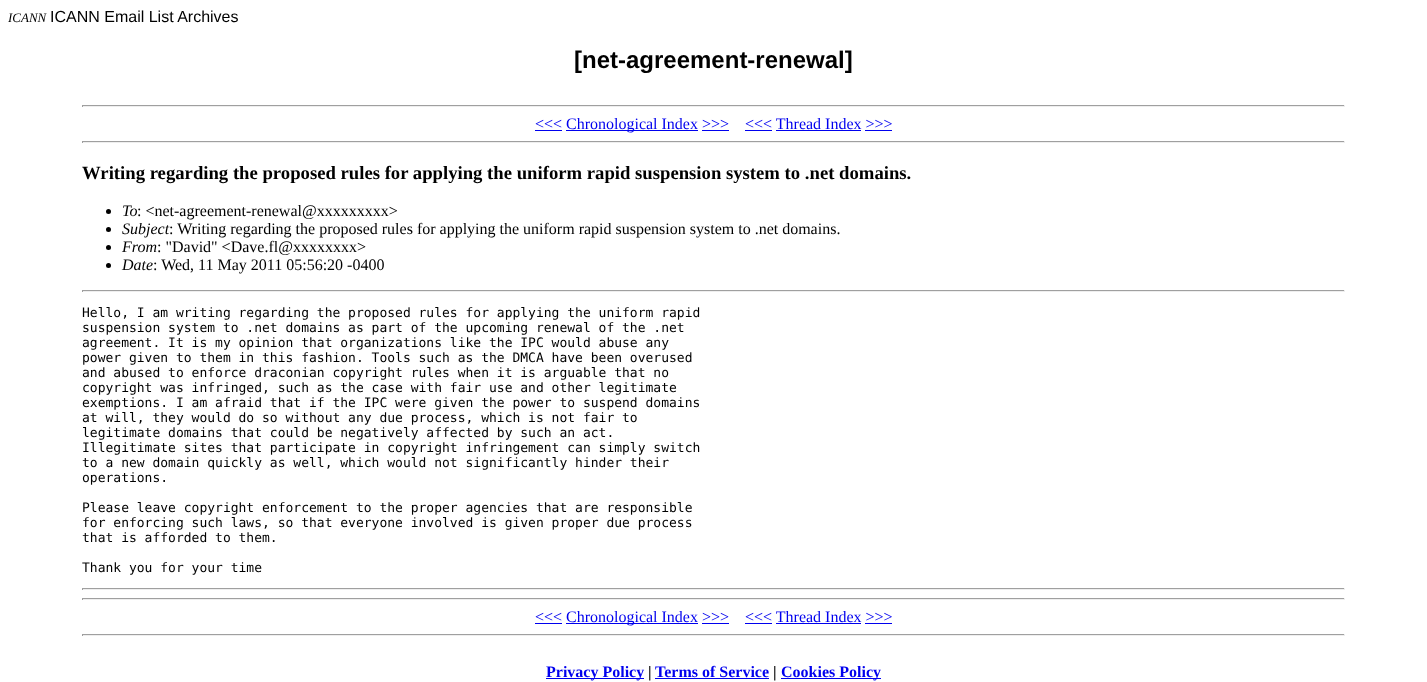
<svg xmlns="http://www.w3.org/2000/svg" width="1427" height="682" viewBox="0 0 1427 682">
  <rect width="100%" height="100%" fill="#ffffff"/>
  <text x="8" y="22" font-family="Liberation Serif" font-size="13" font-style="italic" fill="#000000">ICANN</text>
  <text x="50" y="22" font-family="Liberation Sans" font-size="16" fill="#000000">ICANN Email List Archives</text>
  <text x="574" y="68" font-family="Liberation Sans" font-size="24" font-weight="bold" fill="#000000">[net-agreement-renewal]</text>
  <rect x="82" y="105" width="1263" height="1" fill="#9f9f9f"/>
  <rect x="1344" y="105" width="1" height="2" fill="#eeeeee"/>
  <rect x="82" y="106" width="1263" height="1" fill="#eeeeee"/>
  <rect x="82" y="105" width="1" height="2" fill="#9f9f9f"/>
  <text x="535" y="129" font-family="Liberation Serif" font-size="16" fill="#0000ee">&lt;&lt;&lt;</text>
  <rect x="535" y="130" width="27" height="1" fill="#0000ee"/>
  <rect x="566" y="130" width="132" height="1" fill="#0000ee"/>
  <text x="566" y="129" font-family="Liberation Serif" font-size="16" fill="#0000ee">Chronological Index &gt;&gt;&gt;</text>
  <text x="745" y="129" font-family="Liberation Serif" font-size="16" fill="#0000ee">&lt;&lt;&lt; Thread Index &gt;&gt;&gt;</text>
  <rect x="745" y="130" width="27" height="1" fill="#0000ee"/>
  <rect x="702" y="130" width="27" height="1" fill="#0000ee"/>
  <rect x="776" y="130" width="85" height="1" fill="#0000ee"/>
  <rect x="865" y="130" width="27" height="1" fill="#0000ee"/>
  <rect x="82" y="141" width="1263" height="1" fill="#9f9f9f"/>
  <rect x="1344" y="141" width="1" height="2" fill="#eeeeee"/>
  <rect x="82" y="142" width="1263" height="1" fill="#eeeeee"/>
  <rect x="82" y="141" width="1" height="2" fill="#9f9f9f"/>
  <text x="82" y="179" font-family="Liberation Serif" font-size="18.7" font-weight="bold" fill="#000000">Writing regarding the proposed rules for applying the uniform rapid suspension system to .net domains.</text>
  <circle cx="108.5" cy="211.5" r="2.5" fill="#000000"/>
  <text x="122" y="216" font-family="Liberation Serif" font-size="16" font-style="italic" fill="#000000">To</text>
  <text x="137" y="216" font-family="Liberation Serif" font-size="16" fill="#000000">: &lt;net-agreement-renewal@xxxxxxxxx&gt;</text>
  <circle cx="108.5" cy="229.5" r="2.5" fill="#000000"/>
  <text x="122" y="234" font-family="Liberation Serif" font-size="16" font-style="italic" fill="#000000">Subject</text>
  <text x="169" y="234" font-family="Liberation Serif" font-size="16" fill="#000000">: Writing regarding the proposed rules for applying the uniform rapid suspension system to .net domains.</text>
  <circle cx="108.5" cy="247.5" r="2.5" fill="#000000"/>
  <text x="122" y="252" font-family="Liberation Serif" font-size="16" font-style="italic" fill="#000000">From</text>
  <text x="157" y="252" font-family="Liberation Serif" font-size="16" fill="#000000">: "David" &lt;Dave.fl@xxxxxxxx&gt;</text>
  <circle cx="108.5" cy="265.5" r="2.5" fill="#000000"/>
  <text x="122" y="270" font-family="Liberation Serif" font-size="16" font-style="italic" fill="#000000">Date</text>
  <text x="153" y="270" font-family="Liberation Serif" font-size="16" fill="#000000">: Wed, 11 May 2011 05:56:20 -0400</text>
  <rect x="82" y="290" width="1263" height="1" fill="#9f9f9f"/>
  <rect x="1344" y="290" width="1" height="2" fill="#eeeeee"/>
  <rect x="82" y="291" width="1263" height="1" fill="#eeeeee"/>
  <rect x="82" y="290" width="1" height="2" fill="#9f9f9f"/>
  <text x="82" y="317" font-family="DejaVu Sans Mono" font-size="13" fill="#000000">Hello, I am writing regarding the proposed rules for applying the uniform rapid</text>
  <text x="82" y="332" font-family="DejaVu Sans Mono" font-size="13" fill="#000000">suspension system to .net domains as part of the upcoming renewal of the .net</text>
  <text x="82" y="347" font-family="DejaVu Sans Mono" font-size="13" fill="#000000">agreement. It is my opinion that organizations like the IPC would abuse any</text>
  <text x="82" y="362" font-family="DejaVu Sans Mono" font-size="13" fill="#000000">power given to them in this fashion. Tools such as the DMCA have been overused</text>
  <text x="82" y="377" font-family="DejaVu Sans Mono" font-size="13" fill="#000000">and abused to enforce draconian copyright rules when it is arguable that no</text>
  <text x="82" y="392" font-family="DejaVu Sans Mono" font-size="13" fill="#000000">copyright was infringed, such as the case with fair use and other legitimate</text>
  <text x="82" y="407" font-family="DejaVu Sans Mono" font-size="13" fill="#000000">exemptions. I am afraid that if the IPC were given the power to suspend domains</text>
  <text x="82" y="422" font-family="DejaVu Sans Mono" font-size="13" fill="#000000">at will, they would do so without any due process, which is not fair to</text>
  <text x="82" y="437" font-family="DejaVu Sans Mono" font-size="13" fill="#000000">legitimate domains that could be negatively affected by such an act.</text>
  <text x="82" y="452" font-family="DejaVu Sans Mono" font-size="13" fill="#000000">Illegitimate sites that participate in copyright infringement can simply switch</text>
  <text x="82" y="467" font-family="DejaVu Sans Mono" font-size="13" fill="#000000">to a new domain quickly as well, which would not significantly hinder their</text>
  <text x="82" y="482" font-family="DejaVu Sans Mono" font-size="13" fill="#000000">operations.</text>
  <text x="82" y="512" font-family="DejaVu Sans Mono" font-size="13" fill="#000000">Please leave copyright enforcement to the proper agencies that are responsible</text>
  <text x="82" y="527" font-family="DejaVu Sans Mono" font-size="13" fill="#000000">for enforcing such laws, so that everyone involved is given proper due process</text>
  <text x="82" y="542" font-family="DejaVu Sans Mono" font-size="13" fill="#000000">that is afforded to them.</text>
  <text x="82" y="572" font-family="DejaVu Sans Mono" font-size="13" fill="#000000">Thank you for your time</text>
  <rect x="82" y="588" width="1263" height="1" fill="#9f9f9f"/>
  <rect x="1344" y="588" width="1" height="2" fill="#eeeeee"/>
  <rect x="82" y="589" width="1263" height="1" fill="#eeeeee"/>
  <rect x="82" y="588" width="1" height="2" fill="#9f9f9f"/>
  <rect x="82" y="598" width="1263" height="1" fill="#9f9f9f"/>
  <rect x="1344" y="598" width="1" height="2" fill="#eeeeee"/>
  <rect x="82" y="599" width="1263" height="1" fill="#eeeeee"/>
  <rect x="82" y="598" width="1" height="2" fill="#9f9f9f"/>
  <text x="535" y="622" font-family="Liberation Serif" font-size="16" fill="#0000ee">&lt;&lt;&lt;</text>
  <rect x="535" y="623" width="27" height="1" fill="#0000ee"/>
  <rect x="566" y="623" width="132" height="1" fill="#0000ee"/>
  <text x="566" y="622" font-family="Liberation Serif" font-size="16" fill="#0000ee">Chronological Index &gt;&gt;&gt;</text>
  <text x="745" y="622" font-family="Liberation Serif" font-size="16" fill="#0000ee">&lt;&lt;&lt; Thread Index &gt;&gt;&gt;</text>
  <rect x="745" y="623" width="27" height="1" fill="#0000ee"/>
  <rect x="702" y="623" width="27" height="1" fill="#0000ee"/>
  <rect x="776" y="623" width="85" height="1" fill="#0000ee"/>
  <rect x="865" y="623" width="27" height="1" fill="#0000ee"/>
  <rect x="82" y="634" width="1263" height="1" fill="#9f9f9f"/>
  <rect x="1344" y="634" width="1" height="2" fill="#eeeeee"/>
  <rect x="82" y="635" width="1263" height="1" fill="#eeeeee"/>
  <rect x="82" y="634" width="1" height="2" fill="#9f9f9f"/>
  <rect x="546" y="678" width="98" height="1" fill="#0000ee"/>
  <text x="546" y="677" font-family="Liberation Serif" font-size="16" font-weight="bold" fill="#0000ee">Privacy Policy</text>
  <text x="648" y="677" font-family="Liberation Serif" font-size="16" font-weight="bold" fill="#000000">|</text>
  <text x="655" y="677" font-family="Liberation Serif" font-size="16" font-weight="bold" fill="#0000ee">Terms of Service</text>
  <rect x="655" y="678" width="114" height="1" fill="#0000ee"/>
  <text x="773" y="677" font-family="Liberation Serif" font-size="16" font-weight="bold" fill="#000000">|</text>
  <rect x="781" y="678" width="100" height="1" fill="#0000ee"/>
  <text x="781" y="677" font-family="Liberation Serif" font-size="16" font-weight="bold" fill="#0000ee">Cookies Policy</text>
</svg>
